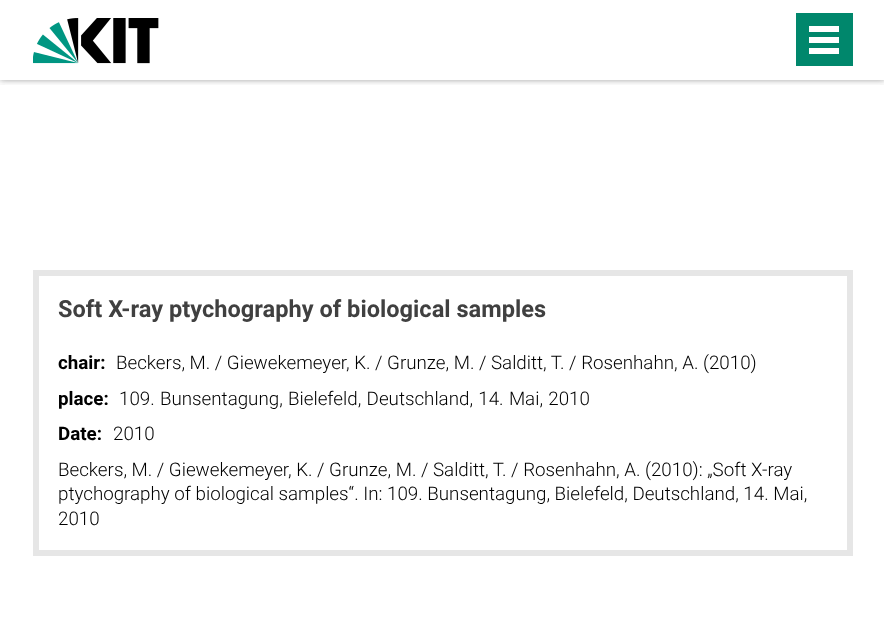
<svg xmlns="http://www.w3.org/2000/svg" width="884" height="627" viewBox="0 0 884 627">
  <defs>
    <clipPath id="clip1"><rect x="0" y="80" width="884" height="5"/></clipPath>
    <filter id="blur1" x="-50%" y="-200%" width="200%" height="500%"><feGaussianBlur stdDeviation="3"/></filter>
  </defs>
  <rect width="100%" height="100%" fill="#ffffff"/>
  <g clip-path="url(#clip1)">
    <rect x="0" y="0" width="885" height="80" fill="#404040" fill-opacity="0.5" filter="url(#blur1)"/>
  </g>
  <image x="33" y="18" width="126" height="46" href="img1.png"/>
  <rect x="796" y="13" width="57" height="53" fill="#00876c"/>
  <rect x="809" y="48" width="30" height="6" fill="#ffffff"/>
  <rect x="809" y="37" width="30" height="6" fill="#ffffff"/>
  <rect x="809" y="26" width="30" height="6" fill="#ffffff"/>
  <rect x="36" y="273" width="814" height="280" fill="none" stroke="#e6e6e6" stroke-width="6"/>
  <text x="58" y="317" font-family="Roboto" font-size="23.6" font-weight="bold" fill="#404040">Soft X-ray ptychography of biological samples</text>
  <text x="58" y="369" font-family="Roboto" font-size="18.75" font-weight="bold" fill="#000000">chair:</text>
  <text x="116" y="369" font-family="Roboto" font-size="18.75" font-weight="300" fill="#000000">Beckers, M. / Giewekemeyer, K. / Grunze, M. / Salditt, T. / Rosenhahn, A. (2010)</text>
  <text x="58" y="405" font-family="Roboto" font-size="18.75" font-weight="bold" fill="#000000">place:</text>
  <text x="119" y="405" word-spacing="0.75" font-family="Roboto" font-size="18.75" font-weight="300" fill="#000000">109. Bunsentagung, Bielefeld, Deutschland, 14. Mai, 2010</text>
  <text x="58" y="440" font-family="Roboto" font-size="18.75" font-weight="bold" fill="#000000">Date:</text>
  <text x="113" y="440" font-family="Roboto" font-size="18.75" font-weight="300" fill="#000000">2010</text>
  <text x="58" y="476" font-family="Roboto" font-size="18.75" font-weight="300" fill="#000000">Beckers, M. / Giewekemeyer, K. / Grunze, M. / Salditt, T. / Rosenhahn, A. (2010): „Soft X-ray</text>
  <text x="58" y="500" font-family="Roboto" font-size="18.75" font-weight="300" fill="#000000">ptychography of biological samples“. In: 109. Bunsentagung, Bielefeld, Deutschland, 14. Mai,</text>
  <text x="58" y="525" font-family="Roboto" font-size="18.75" font-weight="300" fill="#000000">2010</text>
</svg>
